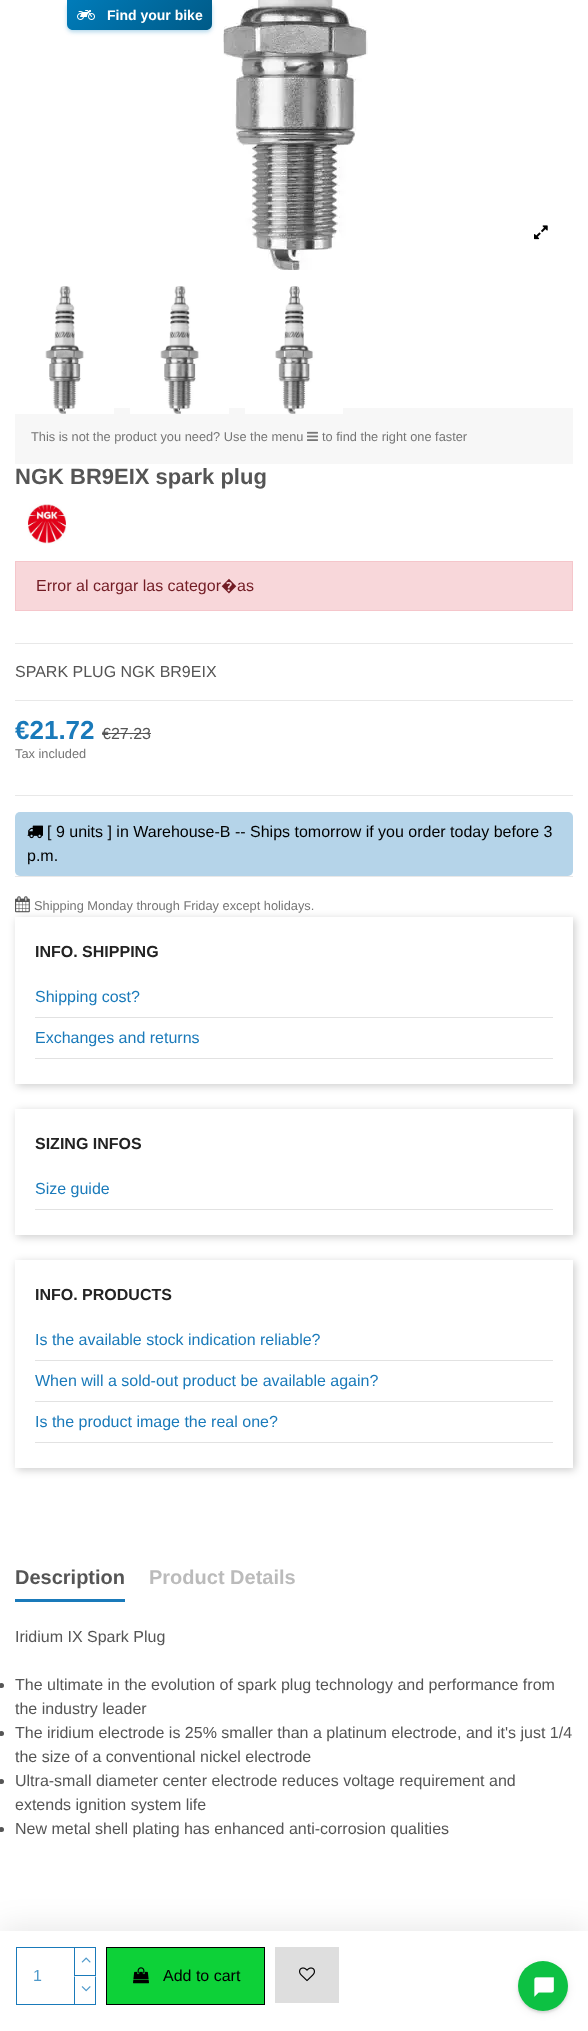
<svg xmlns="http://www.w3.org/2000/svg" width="588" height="2031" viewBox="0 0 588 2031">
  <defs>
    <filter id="blur1" x="-50%" y="-200%" width="200%" height="500%"><feGaussianBlur stdDeviation="2"/></filter>
    <linearGradient id="g1" gradientUnits="userSpaceOnUse" x1="96" y1="-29" x2="183" y2="59"><stop offset="0" stop-color="#007cba"/><stop offset="1" stop-color="#005a87"/></linearGradient>
    <filter id="blur2" x="-50%" y="-200%" width="200%" height="500%"><feGaussianBlur stdDeviation="15"/></filter>
    <clipPath id="clip1"><path d="M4 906H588V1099H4ZM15 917H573V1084H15Z" clip-rule="evenodd"/></clipPath>
    <filter id="blur3" x="-50%" y="-200%" width="200%" height="500%"><feGaussianBlur stdDeviation="4"/></filter>
    <clipPath id="clip2"><path d="M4 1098H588V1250H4ZM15 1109H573V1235H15Z" clip-rule="evenodd"/></clipPath>
    <clipPath id="clip3"><path d="M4 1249H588V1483H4ZM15 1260H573V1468H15Z" clip-rule="evenodd"/></clipPath>
    <filter id="blur4" x="-50%" y="-200%" width="200%" height="500%"><feGaussianBlur stdDeviation="1"/></filter>
  </defs>
  <rect width="100%" height="100%" fill="#ffffff"/>
  <rect x="67" y="2" width="145" height="30" rx="6" fill="#007cba" fill-opacity="0.3" filter="url(#blur1)"/>
  <path d="M67 0H212V24C212 27.5 209.5 30 206 30H73C69.5 30 67 27.5 67 24Z" fill="url(#g1)"/>
  <image x="77" y="10" width="18" height="10" href="img1.png"/>
  <text x="107" y="20" font-family="Liberation Sans" font-size="14" font-weight="bold" fill="#ffffff">Find your bike</text>
  <image x="223" y="0" width="145" height="270" href="img2.png"/>
  <image x="534" y="225" width="14" height="15" href="img3.png"/>
  <rect x="15" y="408" width="558" height="56" fill="#f7f7f7"/>
  <image x="15" y="286" width="99" height="128" href="img4.png"/>
  <image x="130" y="286" width="99" height="128" href="img5.png"/>
  <image x="245" y="286" width="98" height="128" href="img6.png"/>
  <text x="31" y="441" font-family="Liberation Sans" font-size="12.8" fill="#757575">This is not the product you need? Use the menu</text>
  <image x="307" y="431" width="11" height="10" href="img7.png"/>
  <text x="322" y="441" font-family="Liberation Sans" font-size="12.8" fill="#757575">to find the right one faster</text>
  <rect x="15" y="643" width="558" height="1" fill="#e8e8e8"/>
  <text x="15" y="484" font-family="Liberation Sans" font-size="22" font-weight="bold" fill="#555555">NGK BR9EIX spark plug</text>
  <image x="27" y="504" width="40" height="40" href="img8.png"/>
  <rect x="15.5" y="561.5" width="557" height="49" fill="#f8d7da" stroke="#f5c6cb"/>
  <text x="36" y="591" font-family="Liberation Sans" font-size="16" fill="#721c24">Error al cargar las categor</text>
  <text x="221" y="591" font-family="Noto Sans" font-size="16" fill="#721c24">�</text>
  <text x="237" y="591" font-family="Liberation Sans" font-size="16" fill="#721c24">as</text>
  <text x="15" y="677" font-family="Liberation Sans" font-size="16" fill="#555555">SPARK PLUG NGK BR9EIX</text>
  <rect x="15" y="700" width="558" height="1" fill="#e8e8e8"/>
  <text x="15" y="739" font-family="Liberation Sans" font-size="26" font-weight="bold" fill="#1a7aba">€21.72</text>
  <text x="102" y="739" font-family="Liberation Sans" font-size="16" fill="#555555">€27.23</text>
  <rect x="102" y="733" width="49" height="1" fill="#555555"/>
  <text x="15" y="758" font-family="Liberation Sans" font-size="12.8" fill="#757575">Tax included</text>
  <rect x="0" y="1927" width="588" height="100" fill="#000000" fill-opacity="0.09" filter="url(#blur2)"/>
  <rect x="0" y="1931" width="588" height="100" fill="#ffffff"/>
  <rect x="16.5" y="1947.5" width="58" height="57" fill="none" stroke="#1a7aba"/>
  <text x="33" y="1981" font-family="Liberation Sans" font-size="16" fill="#4f99ca">1</text>
  <rect x="74.5" y="1947.5" width="21" height="28" fill="none" stroke="#1a7aba"/>
  <image x="81" y="1957" width="10" height="6" href="img9.png"/>
  <rect x="74" y="1976" width="1" height="28" fill="#ffffff"/>
  <path d="M96 1976V2005L95 2004V1977Z" fill="#1a7aba"/>
  <rect x="74" y="2004" width="22" height="1" fill="#1a7aba"/>
  <path d="M74 2005V1976L75 1977V2004Z" fill="#1a7aba"/>
  <image x="81" y="1986" width="10" height="6" href="img10.png"/>
  <rect x="106.5" y="1947.5" width="158" height="57" fill="#0dd138" stroke="#000000"/>
  <image x="133" y="1967" width="16" height="17" href="img11.png"/>
  <text x="163" y="1981" font-family="Liberation Sans" font-size="16" fill="#000000">Add to cart</text>
  <rect x="275" y="1947" width="64" height="56" fill="#dedede"/>
  <image x="299" y="1967" width="16" height="15" href="img12.png"/>
  <rect x="15" y="795" width="558" height="1" fill="#e8e8e8"/>
  <rect x="15" y="812" width="558" height="64" rx="5" fill="#b5d4e9"/>
  <image x="27" y="825" width="16" height="14" href="img13.png"/>
  <text x="47" y="837" font-family="Liberation Sans" font-size="16" fill="#000000">[ 9 units ] in Warehouse-B -- Ships tomorrow if you order today before 3</text>
  <text x="27" y="861" font-family="Liberation Sans" font-size="16" fill="#000000">p.m.</text>
  <rect x="15" y="876" width="558" height="1" fill="#e8e8e8"/>
  <image x="15" y="896" width="15" height="17" href="img14.png"/>
  <text x="34" y="910" font-family="Liberation Sans" font-size="12.8" fill="#757575">Shipping Monday through Friday except holidays.</text>
  <g clip-path="url(#clip1)">
    <rect x="17" y="919" width="558" height="167" fill="#000000" fill-opacity="0.2" filter="url(#blur3)"/>
  </g>
  <text x="35" y="957" font-family="Liberation Sans" font-size="16" font-weight="bold" fill="#232323">INFO. SHIPPING</text>
  <rect x="35" y="1017" width="518" height="1" fill="#e2e2e2"/>
  <text x="35" y="1002" font-family="Liberation Sans" font-size="16" fill="#1a7aba">Shipping cost?</text>
  <rect x="35" y="1058" width="518" height="1" fill="#e2e2e2"/>
  <text x="35" y="1043" font-family="Liberation Sans" font-size="16" fill="#1a7aba">Exchanges and returns</text>
  <g clip-path="url(#clip2)">
    <rect x="17" y="1111" width="558" height="126" fill="#000000" fill-opacity="0.2" filter="url(#blur3)"/>
  </g>
  <text x="35" y="1149" font-family="Liberation Sans" font-size="16" font-weight="bold" fill="#232323">SIZING INFOS</text>
  <rect x="35" y="1209" width="518" height="1" fill="#e2e2e2"/>
  <text x="35" y="1194" font-family="Liberation Sans" font-size="16" fill="#1a7aba">Size guide</text>
  <g clip-path="url(#clip3)">
    <rect x="17" y="1262" width="558" height="208" fill="#000000" fill-opacity="0.2" filter="url(#blur3)"/>
  </g>
  <text x="35" y="1300" font-family="Liberation Sans" font-size="16" font-weight="bold" fill="#232323">INFO. PRODUCTS</text>
  <rect x="35" y="1360" width="518" height="1" fill="#e2e2e2"/>
  <text x="35" y="1345" font-family="Liberation Sans" font-size="16" fill="#1a7aba">Is the available stock indication reliable?</text>
  <rect x="35" y="1401" width="518" height="1" fill="#e2e2e2"/>
  <text x="35" y="1386" font-family="Liberation Sans" font-size="16" fill="#1a7aba">When will a sold-out product be available again?</text>
  <rect x="35" y="1442" width="518" height="1" fill="#e2e2e2"/>
  <text x="35" y="1427" font-family="Liberation Sans" font-size="16" fill="#1a7aba">Is the product image the real one?</text>
  <rect x="15" y="1599" width="110" height="3" fill="#1a7aba"/>
  <text x="15" y="1584" font-family="Liberation Sans" font-size="20" font-weight="bold" fill="#555555">Description</text>
  <text x="149" y="1584" font-family="Liberation Sans" font-size="20" font-weight="bold" fill="#bbbbbb">Product Details</text>
  <text x="15" y="1642" font-family="Liberation Sans" font-size="16" fill="#555555">Iridium IX Spark Plug</text>
  <circle cx="1.5" cy="1685.5" r="2.5" fill="#555555"/>
  <text x="15" y="1690" font-family="Liberation Sans" font-size="16" fill="#555555">The ultimate in the evolution of spark plug technology and performance from</text>
  <text x="15" y="1714" font-family="Liberation Sans" font-size="16" fill="#555555">the industry leader</text>
  <circle cx="1.5" cy="1733.5" r="2.5" fill="#555555"/>
  <text x="15" y="1738" font-family="Liberation Sans" font-size="16" fill="#555555">The iridium electrode is 25% smaller than a platinum electrode, and it's just 1/4</text>
  <text x="15" y="1762" font-family="Liberation Sans" font-size="16" fill="#555555">the size of a conventional nickel electrode</text>
  <circle cx="1.5" cy="1781.5" r="2.5" fill="#555555"/>
  <text x="15" y="1786" font-family="Liberation Sans" font-size="16" fill="#555555">Ultra-small diameter center electrode reduces voltage requirement and</text>
  <text x="15" y="1810" font-family="Liberation Sans" font-size="16" fill="#555555">extends ignition system life</text>
  <circle cx="1.5" cy="1829.5" r="2.5" fill="#555555"/>
  <text x="15" y="1834" font-family="Liberation Sans" font-size="16" fill="#555555">New metal shell plating has enhanced anti-corrosion qualities</text>
  <rect x="518" y="1963" width="50" height="50" rx="25" fill="#080f1a" fill-opacity="0.12" filter="url(#blur4)"/>
  <rect x="518" y="1963" width="50" height="50" rx="25" fill="#080f1a" fill-opacity="0.08" filter="url(#blur3)"/>
  <circle cx="543" cy="1986" r="25" fill="#0dc143"/>
  <image x="534" y="1977" width="20" height="20" href="img15.png"/>
</svg>
